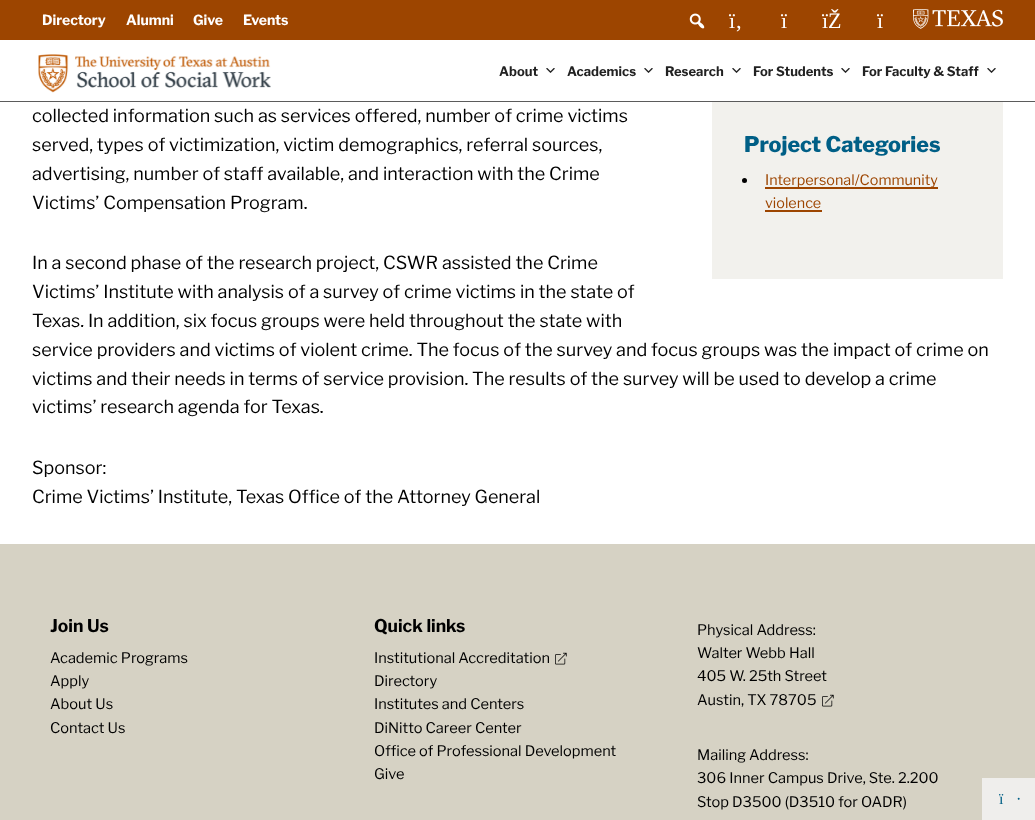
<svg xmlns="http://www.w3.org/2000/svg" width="1035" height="820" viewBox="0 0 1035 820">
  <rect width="100%" height="100%" fill="#ffffff"/>
  <rect x="0" y="101" width="1035" height="1" fill="#5b5b5b"/>
  <rect x="0" y="0" width="1035" height="40" fill="#9d4500"/>
  <text x="42" y="25" font-family="Libre Franklin" font-size="14" font-weight="bold" fill="#ffffff">Directory</text>
  <text x="126" y="25" font-family="Libre Franklin" font-size="14" font-weight="bold" fill="#ffffff">Alumni</text>
  <text x="193" y="25" font-family="Libre Franklin" font-size="14" font-weight="bold" fill="#ffffff">Give</text>
  <text x="243" y="25" font-family="Libre Franklin" font-size="14" font-weight="bold" fill="#ffffff">Events</text>
  <image x="689" y="13" width="16" height="16" href="img1.png"/>
  <text x="729" y="28" font-family="Liberation Serif" font-size="22" fill="#ffffff">ï‚</text>
  <text x="781" y="28" font-family="Liberation Serif" font-size="22" fill="#ffffff">ï</text>
  <text x="822" y="28" font-family="Liberation Serif" font-size="22" fill="#ffffff">ïŽ</text>
  <text x="877" y="28" font-family="Liberation Serif" font-size="22" fill="#ffffff">ï</text>
  <image x="913" y="9" width="90" height="20" href="img2.png"/>
  <image x="38" y="54" width="233" height="39" href="img3.png"/>
  <text x="499" y="76" font-family="Libre Franklin" font-size="13" font-weight="bold" fill="#222222">About</text>
  <image x="546" y="68" width="9" height="5" href="img4.png"/>
  <text x="567" y="76" font-family="Libre Franklin" font-size="13" font-weight="bold" fill="#222222">Academics</text>
  <image x="644" y="68" width="9" height="5" href="img4.png"/>
  <text x="665" y="76" font-family="Libre Franklin" font-size="13" font-weight="bold" fill="#222222">Research</text>
  <image x="732" y="68" width="9" height="5" href="img4.png"/>
  <text x="753" y="76" font-family="Libre Franklin" font-size="13" font-weight="bold" fill="#222222">For Students</text>
  <image x="841" y="68" width="9" height="5" href="img4.png"/>
  <text x="862" y="76" font-family="Libre Franklin" font-size="13" font-weight="bold" fill="#222222">For Faculty &amp; Staff</text>
  <image x="987" y="68" width="9" height="5" href="img4.png"/>
  <text x="32" y="122" font-family="Libre Franklin" font-size="18" fill="#000000">collected information such as services offered, number of crime victims</text>
  <text x="32" y="151" font-family="Libre Franklin" font-size="18" fill="#000000">served, types of victimization, victim demographics, referral sources,</text>
  <text x="32" y="180" font-family="Libre Franklin" font-size="18" fill="#000000">advertising, number of staff available, and interaction with the Crime</text>
  <text x="32" y="209" font-family="Libre Franklin" font-size="18" fill="#000000">Victims’ Compensation Program.</text>
  <rect x="712" y="102" width="291" height="177" fill="#f2f1ed"/>
  <text x="744" y="152" font-family="Libre Franklin" font-size="21.5" font-weight="800" fill="#005f86">Project Categories</text>
  <circle cx="744.5" cy="180.5" r="2.5" fill="#000000"/>
  <rect x="765" y="187" width="173" height="2" fill="#9d4500"/>
  <text x="765" y="185" font-family="Libre Franklin" font-size="14.4" fill="#9d4500">Interpersonal/Community</text>
  <text x="765" y="208" font-family="Libre Franklin" font-size="14.4" fill="#9d4500">violence</text>
  <rect x="765" y="210" width="57" height="2" fill="#9d4500"/>
  <text x="32" y="269" font-family="Libre Franklin" font-size="18" fill="#000000">In a second phase of the research project, CSWR assisted the Crime</text>
  <text x="32" y="298" font-family="Libre Franklin" font-size="18" fill="#000000">Victims’ Institute with analysis of a survey of crime victims in the state of</text>
  <text x="32" y="327" font-family="Libre Franklin" font-size="18" fill="#000000">Texas. In addition, six focus groups were held throughout the state with</text>
  <text x="32" y="356" font-family="Libre Franklin" font-size="18" fill="#000000">service providers and victims of violent crime. The focus of the survey and focus groups was the impact of crime on</text>
  <text x="32" y="385" font-family="Libre Franklin" font-size="18" fill="#000000">victims and their needs in terms of service provision. The results of the survey will be used to develop a crime</text>
  <text x="32" y="413" font-family="Libre Franklin" font-size="18" fill="#000000">victims’ research agenda for Texas.</text>
  <text x="32" y="474" font-family="Libre Franklin" font-size="18" fill="#000000">Sponsor:</text>
  <text x="32" y="503" font-family="Libre Franklin" font-size="18" fill="#000000">Crime Victims’ Institute, Texas Office of the Attorney General</text>
  <rect x="0" y="544" width="1035" height="276" fill="#d6d2c4"/>
  <text x="50" y="632" font-family="Libre Franklin" font-size="17.5" font-weight="bold" fill="#000000">Join Us</text>
  <text x="50" y="663" font-family="Libre Franklin" font-size="14.6" fill="#000000">Academic Programs</text>
  <text x="50" y="686" font-family="Libre Franklin" font-size="14.6" fill="#000000">Apply</text>
  <text x="50" y="709" font-family="Libre Franklin" font-size="14.6" fill="#000000">About Us</text>
  <text x="50" y="733" font-family="Libre Franklin" font-size="14.6" fill="#000000">Contact Us</text>
  <text x="374" y="632" font-family="Libre Franklin" font-size="17.5" font-weight="bold" fill="#000000">Quick links</text>
  <text x="374" y="663" font-family="Libre Franklin" font-size="14.6" fill="#000000">Institutional Accreditation</text>
  <image x="555" y="652" width="12" height="13" href="img5.png"/>
  <text x="374" y="686" font-family="Libre Franklin" font-size="14.6" fill="#000000">Directory</text>
  <text x="374" y="709" font-family="Libre Franklin" font-size="14.6" fill="#000000">Institutes and Centers</text>
  <text x="374" y="733" font-family="Libre Franklin" font-size="14.6" fill="#000000">DiNitto Career Center</text>
  <text x="374" y="756" font-family="Libre Franklin" font-size="14.6" fill="#000000">Office of Professional Development</text>
  <text x="374" y="779" font-family="Libre Franklin" font-size="14.6" fill="#000000">Give</text>
  <text x="697" y="635" font-family="Libre Franklin" font-size="14.6" fill="#000000">Physical Address:</text>
  <text x="697" y="658" font-family="Libre Franklin" font-size="14.6" fill="#000000">Walter Webb Hall</text>
  <text x="697" y="681" font-family="Libre Franklin" font-size="14.6" fill="#000000">405 W. 25th Street</text>
  <text x="697" y="705" font-family="Libre Franklin" font-size="14.6" fill="#000000">Austin, TX 78705</text>
  <image x="822" y="694" width="12" height="13" href="img5.png"/>
  <text x="697" y="760" font-family="Libre Franklin" font-size="14.6" fill="#000000">Mailing Address:</text>
  <text x="697" y="783" font-family="Libre Franklin" font-size="14.6" fill="#000000">306 Inner Campus Drive, Ste. 2.200</text>
  <text x="697" y="807" font-family="Libre Franklin" font-size="14.6" fill="#000000">Stop D3500 (D3510 for OADR)</text>
  <rect x="982" y="778" width="53" height="42" fill="#efeeec"/>
  <text x="999" y="804" font-family="Liberation Serif" font-size="16" fill="#005f86">ï</text>
  <text x="1016" y="804" font-family="Liberation Serif" font-size="16" fill="#005f86">·</text>
</svg>
